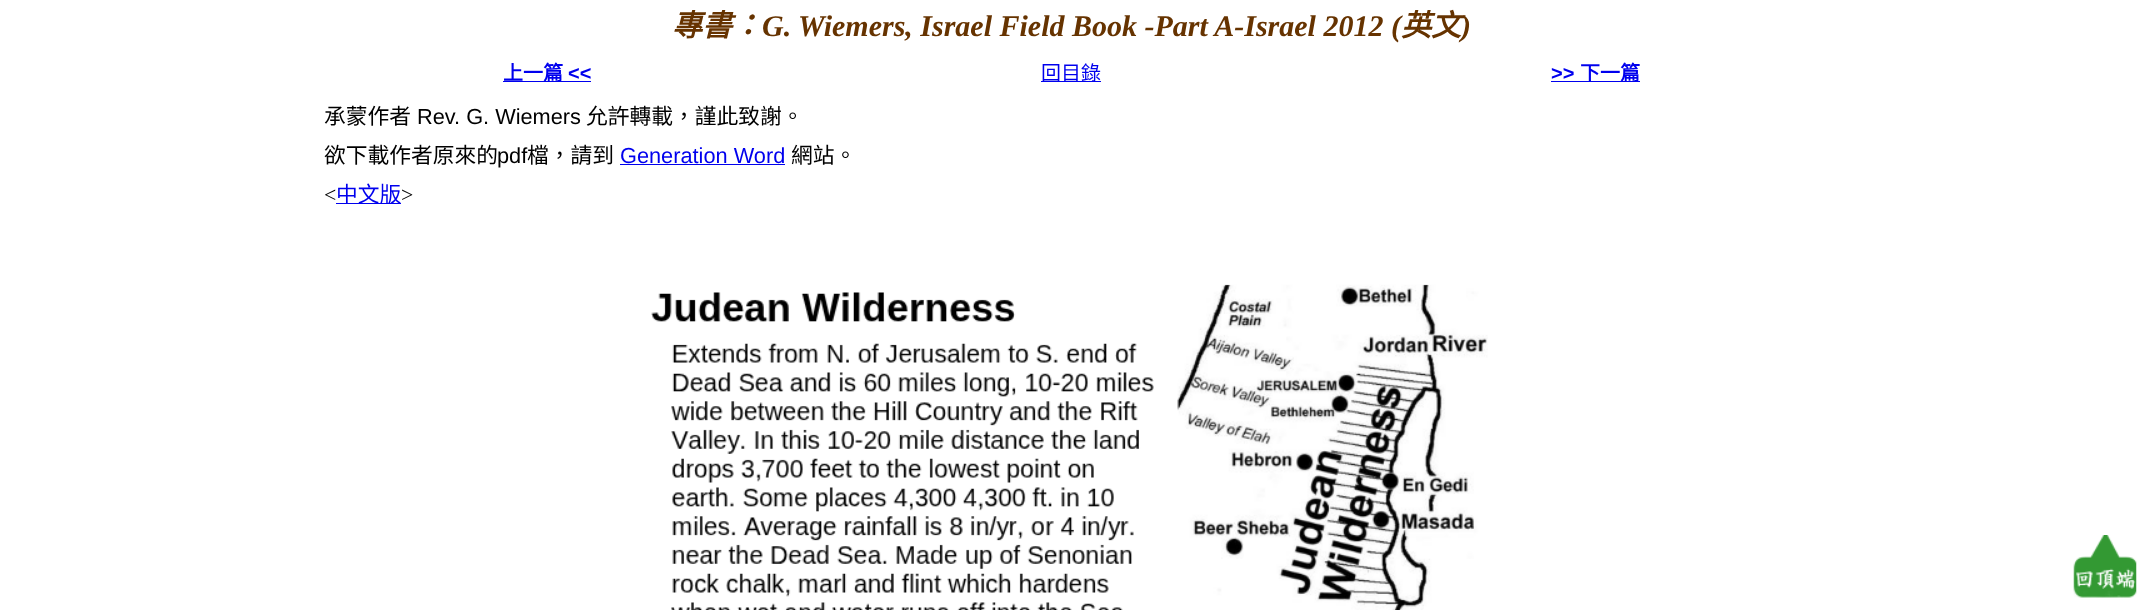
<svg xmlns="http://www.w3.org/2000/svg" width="2142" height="610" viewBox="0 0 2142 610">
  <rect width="100%" height="100%" fill="#ffffff"/>
  <text x="672" y="36" font-family="Noto Sans CJK TC" font-size="30" font-weight="bold" font-style="italic" fill="#663300">專書：</text>
  <text x="762" y="36" font-family="Liberation Serif" font-size="30" font-weight="bold" font-style="italic" fill="#663300">G. Wiemers, Israel Field Book -Part A-Israel 2012 (</text>
  <text x="1401" y="36" font-family="Noto Sans CJK TC" font-size="30" font-weight="bold" font-style="italic" fill="#663300">英文</text>
  <text x="1461" y="36" font-family="Liberation Serif" font-size="30" font-weight="bold" font-style="italic" fill="#663300">)</text>
  <rect x="503" y="81" width="88" height="1" fill="#0000ee"/>
  <text x="503" y="80" font-family="Noto Sans CJK TC" font-size="20" font-weight="bold" fill="#0000ee">上一篇</text>
  <text x="568" y="80" font-family="Liberation Sans" font-size="20" font-weight="bold" fill="#0000ee">&lt;&lt;</text>
  <rect x="1041" y="81" width="60" height="1" fill="#0000ee"/>
  <text x="1041" y="80" font-family="Noto Sans CJK TC" font-size="20" fill="#0000ee">回目錄</text>
  <text x="1551" y="80" font-family="Liberation Sans" font-size="20" font-weight="bold" fill="#0000ee">&gt;&gt;</text>
  <rect x="1551" y="81" width="89" height="1" fill="#0000ee"/>
  <text x="1580" y="80" font-family="Noto Sans CJK TC" font-size="20" font-weight="bold" fill="#0000ee">下一篇</text>
  <text x="324" y="124" font-family="Noto Sans CJK TC" font-size="21.75" fill="#000000">承蒙作者</text>
  <text x="417" y="124" font-family="Liberation Sans" font-size="21.75" fill="#000000">Rev. G. Wiemers</text>
  <text x="586" y="124" font-family="Noto Sans CJK TC" font-size="21.75" fill="#000000">允許轉載，謹此致謝。</text>
  <text x="324" y="163" font-family="Noto Sans CJK TC" font-size="21.75" fill="#000000">欲下載作者原來的</text>
  <text x="497" y="163" font-family="Liberation Sans" font-size="21.75" fill="#000000">pdf</text>
  <text x="527" y="163" font-family="Noto Sans CJK TC" font-size="21.75" fill="#000000">檔，請到</text>
  <text x="620" y="163" font-family="Liberation Sans" font-size="21.75" fill="#0000ee">Generation Word</text>
  <rect x="620" y="164" width="165" height="1" fill="#0000ee"/>
  <text x="791" y="163" font-family="Noto Sans CJK TC" font-size="21.75" fill="#000000">網站。</text>
  <text x="324" y="202" font-family="Liberation Serif" font-size="21.75" fill="#000000">&lt;</text>
  <rect x="336" y="203" width="65" height="1" fill="#0000ee"/>
  <text x="336" y="202" font-family="Noto Sans CJK TC" font-size="21.75" fill="#0000ee">中文版</text>
  <text x="401" y="202" font-family="Liberation Serif" font-size="21.75" fill="#000000">&gt;</text>
  <image x="651" y="284" width="837" height="326" href="img1.png"/>
  <image x="2073" y="535" width="64" height="63" href="img2.png"/>
</svg>
